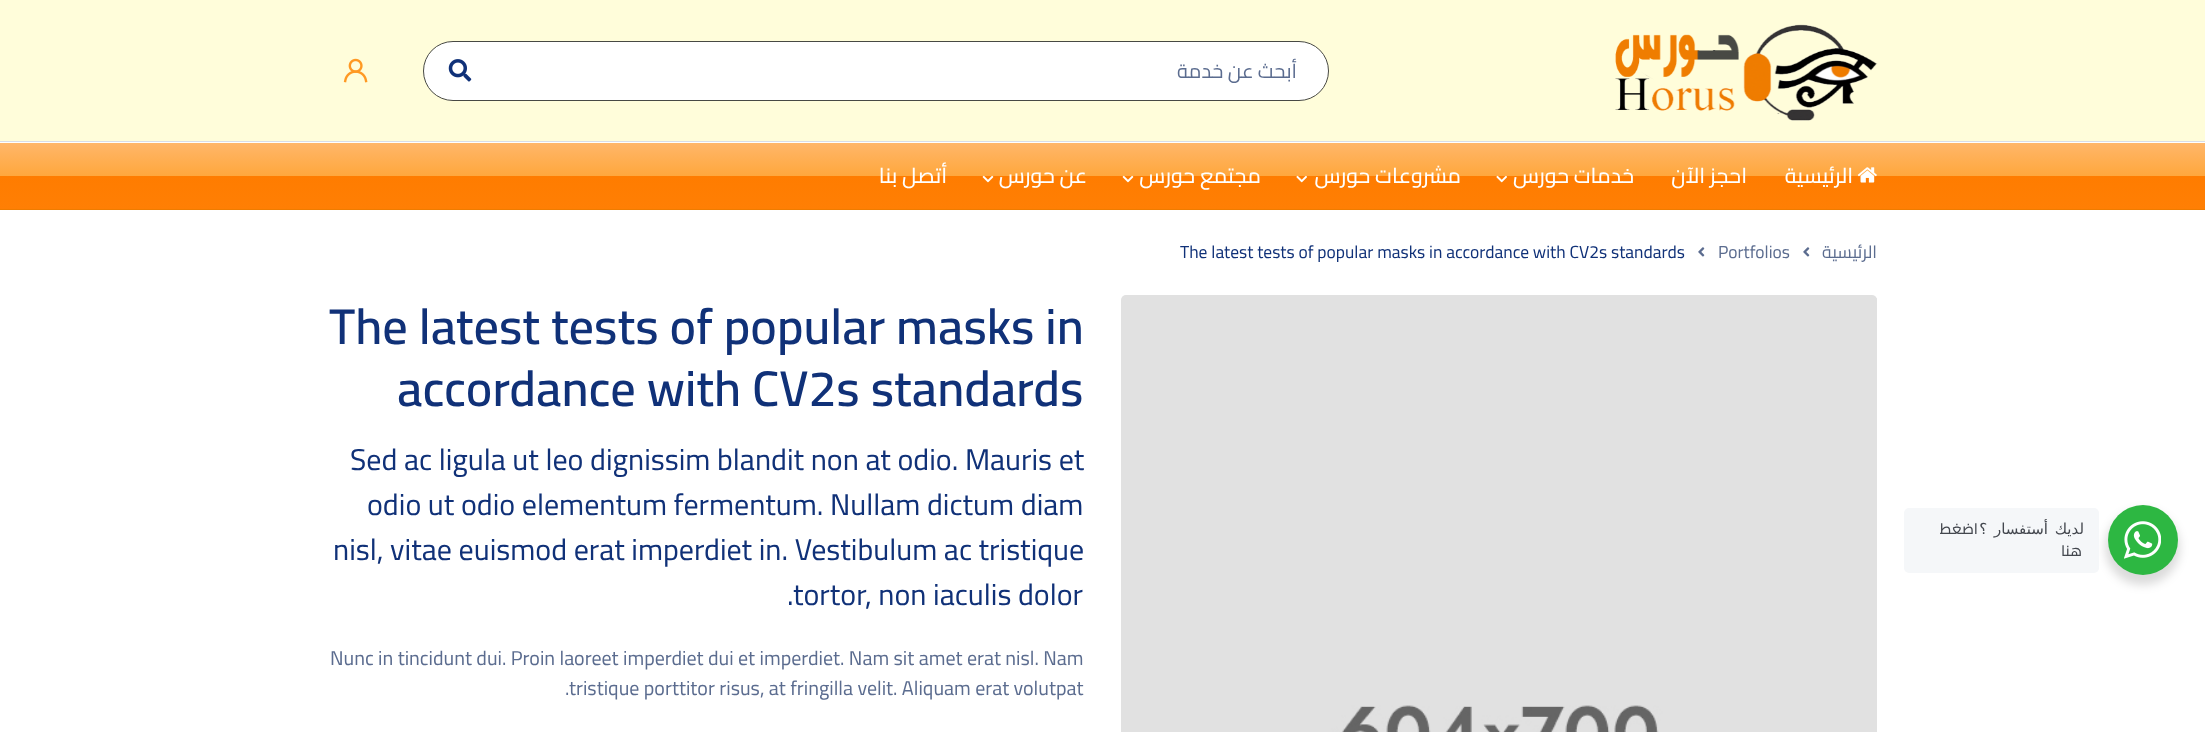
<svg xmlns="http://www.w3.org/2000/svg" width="2205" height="732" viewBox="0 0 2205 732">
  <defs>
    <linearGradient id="g1" gradientUnits="userSpaceOnUse" x1="1103" y1="142" x2="1103" y2="209"><stop offset="0" stop-color="#ffb76b"/><stop offset="0.5" stop-color="#ffa73d"/><stop offset="0.51" stop-color="#ff7c00"/><stop offset="1" stop-color="#ff7f04"/></linearGradient>
    <filter id="blur1" x="-50%" y="-200%" width="200%" height="500%"><feGaussianBlur stdDeviation="5"/></filter>
  </defs>
  <rect width="100%" height="100%" fill="#ffffff"/>
  <rect x="0" y="0" width="2205" height="141" fill="#fffdda"/>
  <rect x="0" y="141" width="2205" height="1" fill="#d9dee8"/>
  <image x="343" y="58" width="25" height="25" href="img1.png"/>
  <rect x="423.5" y="41.5" width="905" height="59" rx="29.5" fill="#ffffff" stroke="#484944"/>
  <image x="448" y="59" width="24" height="23" href="img2.png"/>
  <text x="1297" y="78" font-family="Cairo" font-size="20" direction="rtl" fill="#5b6c8f">أبحث عن خدمة</text>
  <image x="1615" y="24" width="263" height="97" href="img3.png"/>
  <rect x="0" y="143" width="2205" height="66" fill="url(#g1)"/>
  <rect x="0" y="209" width="2205" height="1" fill="#ef7c00"/>
  <text x="947" y="183" font-family="Cairo" font-size="21.25" font-weight="500" direction="rtl" fill="#ffffff">أتصل بنا</text>
  <image x="982" y="175" width="12" height="8" href="img4.png"/>
  <text x="1087" y="183" font-family="Cairo" font-size="21.25" font-weight="500" direction="rtl" fill="#ffffff">عن حورس</text>
  <image x="1122" y="175" width="12" height="8" href="img4.png"/>
  <text x="1261" y="183" font-family="Cairo" font-size="21.25" font-weight="500" direction="rtl" fill="#ffffff">مجتمع حورس</text>
  <image x="1296" y="175" width="11" height="8" href="img5.png"/>
  <text x="1461" y="183" font-family="Cairo" font-size="21.25" font-weight="500" direction="rtl" fill="#ffffff">مشروعات حورس</text>
  <image x="1496" y="175" width="11" height="8" href="img5.png"/>
  <text x="1634" y="183" font-family="Cairo" font-size="21.25" font-weight="500" direction="rtl" fill="#ffffff">خدمات حورس</text>
  <text x="1747" y="183" font-family="Cairo" font-size="21.25" font-weight="500" direction="rtl" fill="#ffffff">احجز الآن</text>
  <text x="1853" y="183" font-family="Cairo" font-size="21.25" font-weight="500" direction="rtl" fill="#ffffff">الرئيسية</text>
  <image x="1857" y="167" width="20" height="16" href="img6.png"/>
  <text x="1180" y="258" font-family="Cairo" font-size="17.5" fill="#103178">The latest tests of popular masks in accordance with CV2s standards</text>
  <image x="1698" y="247" width="7" height="10" href="img7.png"/>
  <text x="1718" y="258" font-family="Cairo" font-size="17.5" fill="#5b6c8f">Portfolios</text>
  <image x="1803" y="247" width="7" height="10" href="img7.png"/>
  <text x="1877" y="258" font-family="Cairo" font-size="17.5" direction="rtl" fill="#5b6c8f">الرئيسية</text>
  <text x="329" y="344" font-family="Cairo" font-size="50" font-weight="600" fill="#103178">The latest tests of popular masks in</text>
  <text x="397" y="406" font-family="Cairo" font-size="50" font-weight="600" fill="#103178">accordance with CV2s standards</text>
  <text x="350" y="470" font-family="Cairo" font-size="30" fill="#103178">Sed ac ligula ut leo dignissim blandit non at odio. Mauris et</text>
  <text x="367" y="515" font-family="Cairo" font-size="30" fill="#103178">odio ut odio elementum fermentum. Nullam dictum diam</text>
  <text x="333" y="560" font-family="Cairo" font-size="30" fill="#103178">nisl, vitae euismod erat imperdiet in. Vestibulum ac tristique</text>
  <text x="787" y="605" font-family="Cairo" font-size="30" fill="#103178">.tortor, non iaculis dolor</text>
  <text x="330" y="665" font-family="Cairo" font-size="20" fill="#5b6c8f">Nunc in tincidunt dui. Proin laoreet imperdiet dui et imperdiet. Nam sit amet erat nisl. Nam</text>
  <text x="565" y="695" font-family="Cairo" font-size="20" fill="#5b6c8f">.tristique porttitor risus, at fringilla velit. Aliquam erat volutpat</text>
  <image x="1121" y="295" width="756" height="437" href="img8.png"/>
  <rect x="2105" y="510" width="75" height="75" rx="37.5" fill="#000000" fill-opacity="0.14" filter="url(#blur1)"/>
  <rect x="1904" y="508" width="195" height="65" rx="5" fill="#f5f7f9"/>
  <text x="1978" y="534" font-family="Cairo" font-size="15" font-weight="500" letter-spacing="-0.5" direction="rtl" fill="#43474e">اضغط</text>
  <text x="2084" y="534" word-spacing="2" font-family="DejaVu Sans" font-size="15" letter-spacing="-0.5" direction="rtl" fill="#43474e">لديك أستفسار ؟</text>
  <text x="2082" y="556" font-family="Cairo" font-size="15" font-weight="500" letter-spacing="-0.5" direction="rtl" fill="#43474e">هنا</text>
  <circle cx="2143" cy="540" r="35" fill="#2db742"/>
  <image x="2124" y="521" width="37" height="38" href="img9.png"/>
</svg>
